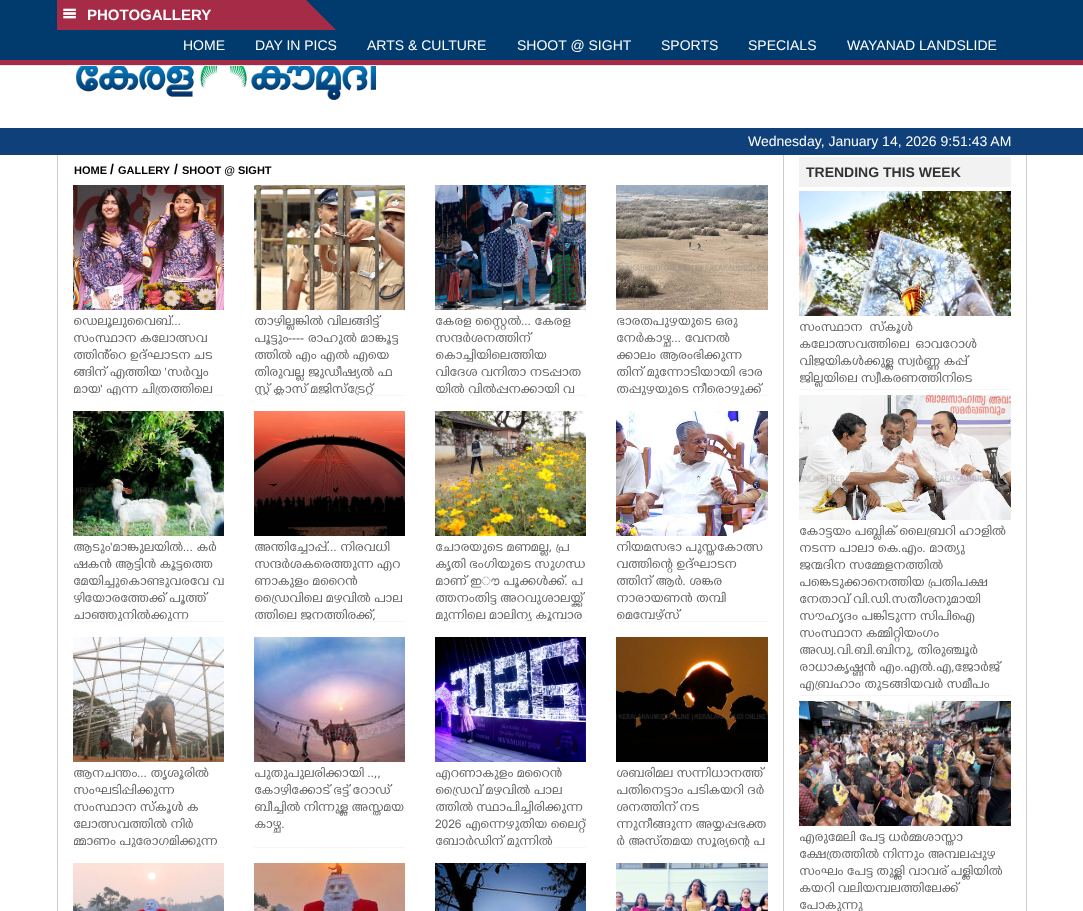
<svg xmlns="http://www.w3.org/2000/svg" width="1083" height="911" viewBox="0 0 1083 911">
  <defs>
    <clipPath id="clip1"><rect x="57" y="0" width="280" height="30"/></clipPath>
    <clipPath id="clip2"><rect x="73" y="315" width="151" height="80"/></clipPath>
    <clipPath id="clip3"><rect x="254" y="315" width="151" height="80"/></clipPath>
    <clipPath id="clip4"><rect x="435" y="315" width="151" height="80"/></clipPath>
    <clipPath id="clip5"><rect x="616" y="315" width="152" height="80"/></clipPath>
    <clipPath id="clip6"><rect x="73" y="541" width="151" height="80"/></clipPath>
    <clipPath id="clip7"><rect x="254" y="541" width="151" height="80"/></clipPath>
    <clipPath id="clip8"><rect x="435" y="541" width="151" height="80"/></clipPath>
    <clipPath id="clip9"><rect x="616" y="541" width="152" height="80"/></clipPath>
    <clipPath id="clip10"><rect x="73" y="767" width="151" height="80"/></clipPath>
    <clipPath id="clip11"><rect x="254" y="767" width="151" height="80"/></clipPath>
    <clipPath id="clip12"><rect x="435" y="767" width="151" height="80"/></clipPath>
    <clipPath id="clip13"><rect x="616" y="767" width="152" height="80"/></clipPath>
  </defs>
  <rect width="100%" height="100%" fill="#ffffff"/>
  <rect x="0" y="0" width="1083" height="60" fill="#013a6d"/>
  <rect x="0" y="65" width="1083" height="1" fill="#e7e7e7"/>
  <g clip-path="url(#clip1)">
    <path d="M26 0H306L336 30H56Z" fill="#a52b46"/>
  </g>
  <image x="63" y="8" width="14" height="11" href="img1.png"/>
  <text x="87" y="20" font-family="Liberation Sans" font-size="15" font-weight="bold" fill="#ffffff">PHOTOGALLERY</text>
  <text x="183" y="50" font-family="Liberation Sans" font-size="14" fill="#ffffff">HOME</text>
  <text x="255" y="50" font-family="Liberation Sans" font-size="14" fill="#ffffff">DAY IN PICS</text>
  <text x="367" y="50" font-family="Liberation Sans" font-size="14" fill="#ffffff">ARTS &amp; CULTURE</text>
  <text x="517" y="50" font-family="Liberation Sans" font-size="14" fill="#ffffff">SHOOT @ SIGHT</text>
  <text x="661" y="50" font-family="Liberation Sans" font-size="14" fill="#ffffff">SPORTS</text>
  <text x="748" y="50" font-family="Liberation Sans" font-size="14" fill="#ffffff">SPECIALS</text>
  <text x="847" y="50" font-family="Liberation Sans" font-size="14" fill="#ffffff">WAYANAD LANDSLIDE</text>
  <rect x="0" y="60" width="1083" height="5" fill="#a52b46"/>
  <image x="76" y="66" width="300" height="34" href="img2.png"/>
  <rect x="0" y="128" width="1083" height="27" fill="#0f4079"/>
  <text x="748" y="146" font-family="Liberation Sans" font-size="14" fill="#ffffff">Wednesday, January 14, 2026 9:51:43 AM</text>
  <rect x="1026" y="155" width="1" height="756" fill="#cccccc"/>
  <rect x="57" y="155" width="1" height="756" fill="#cccccc"/>
  <rect x="783" y="155" width="1" height="756" fill="#cccccc"/>
  <text x="74" y="174" font-family="Liberation Sans" font-size="11" font-weight="bold" fill="#000000">HOME</text>
  <text x="110" y="174" font-family="Liberation Sans" font-size="14" font-weight="bold" fill="#000000">/</text>
  <text x="118" y="174" font-family="Liberation Sans" font-size="11" font-weight="bold" fill="#000000">GALLERY</text>
  <text x="174" y="174" font-family="Liberation Sans" font-size="14" font-weight="bold" fill="#000000">/</text>
  <text x="182" y="174" font-family="Liberation Sans" font-size="11" font-weight="bold" fill="#000000">SHOOT @ SIGHT</text>
  <rect x="73" y="395" width="151" height="1" fill="#f6f6f6"/>
  <image x="73" y="185" width="151" height="125" href="img3.png"/>
  <text x="73" y="325" font-family="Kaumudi" font-size="11.9" fill="#666666">ഡെലൂലുവൈബ്...</text>
  <text x="73" y="342" font-family="Kaumudi" font-size="11.9" fill="#666666">സംസ്ഥാന കലോത്സവ</text>
  <g clip-path="url(#clip2)">
    <text x="73" y="359" font-family="Kaumudi" font-size="11.9" fill="#666666">ത്തിൻ്റെ ഉദ്ഘാടന ചട</text>
    <text x="73" y="376" font-family="Kaumudi" font-size="11.9" fill="#666666">ങ്ങിന് എത്തിയ 'സർവ്വം</text>
    <text x="73" y="393" font-family="Kaumudi" font-size="11.9" fill="#666666">മായ' എന്ന ചിത്രത്തിലെ</text>
  </g>
  <rect x="254" y="395" width="151" height="1" fill="#f6f6f6"/>
  <image x="254" y="185" width="151" height="125" href="img4.png"/>
  <g clip-path="url(#clip3)">
    <text x="254" y="325" font-family="Kaumudi" font-size="11.9" fill="#666666">താഴില്ലങ്കിൽ വിലങ്ങിട്ട്</text>
  </g>
  <text x="254" y="342" font-family="Kaumudi" font-size="11.9" fill="#666666">പൂട്ടും---- രാഹുൽ മാങ്കൂട്ട</text>
  <g clip-path="url(#clip3)">
    <text x="254" y="359" font-family="Kaumudi" font-size="11.9" fill="#666666">ത്തിൽ എം എൽ എയെ</text>
    <text x="254" y="376" font-family="Kaumudi" font-size="11.9" fill="#666666">തിരുവല്ല ജുഡീഷ്യൽ ഫ</text>
    <text x="254" y="393" font-family="Kaumudi" font-size="11.9" fill="#666666">സ്റ്റ് ക്ളാസ് മജിസ്ട്രേറ്റ്</text>
  </g>
  <rect x="435" y="395" width="151" height="1" fill="#f6f6f6"/>
  <image x="435" y="185" width="151" height="125" href="img5.png"/>
  <text x="435" y="325" font-family="Kaumudi" font-size="11.9" fill="#666666">കേരള സ്റ്റൈൽ... കേരള</text>
  <text x="435" y="342" font-family="Kaumudi" font-size="11.9" fill="#666666">സന്ദർശനത്തിന്</text>
  <text x="435" y="359" font-family="Kaumudi" font-size="11.9" fill="#666666">കൊച്ചിയിലെത്തിയ</text>
  <g clip-path="url(#clip4)">
    <text x="435" y="376" font-family="Kaumudi" font-size="11.9" fill="#666666">വിദേശ വനിതാ നടപ്പാത</text>
    <text x="435" y="393" font-family="Kaumudi" font-size="11.9" fill="#666666">യിൽ വിൽപ്പനക്കായി വ</text>
  </g>
  <rect x="616" y="395" width="152" height="1" fill="#f6f6f6"/>
  <image x="616" y="185" width="152" height="125" href="img6.png"/>
  <text x="616" y="325" font-family="Kaumudi" font-size="11.9" fill="#666666">ഭാരതപുഴയുടെ ഒരു</text>
  <text x="616" y="342" font-family="Kaumudi" font-size="11.9" fill="#666666">നേർകാഴ്ച... വേനൽ</text>
  <text x="616" y="359" font-family="Kaumudi" font-size="11.9" fill="#666666">ക്കാലം ആരംഭിക്കുന്ന</text>
  <g clip-path="url(#clip5)">
    <text x="616" y="376" font-family="Kaumudi" font-size="11.9" fill="#666666">തിന് മുന്നോടിയായി ഭാര</text>
    <text x="616" y="393" font-family="Kaumudi" font-size="11.9" fill="#666666">തപ്പുഴയുടെ നീരൊഴുക്ക്</text>
  </g>
  <rect x="73" y="621" width="151" height="1" fill="#f6f6f6"/>
  <image x="73" y="411" width="151" height="125" href="img7.png"/>
  <text x="73" y="551" font-family="Kaumudi" font-size="11.9" fill="#666666">ആടും'മാങ്കുലയിൽ... കർ</text>
  <text x="73" y="568" font-family="Kaumudi" font-size="11.9" fill="#666666">ഷകൻ ആട്ടിൻ കൂട്ടത്തെ</text>
  <text x="73" y="585" font-family="Kaumudi" font-size="11.9" fill="#666666">മേയിച്ചുകൊണ്ടുവരവേ വ</text>
  <g clip-path="url(#clip6)">
    <text x="73" y="602" font-family="Kaumudi" font-size="11.9" fill="#666666">ഴിയോരത്തേക്ക് പൂത്ത്</text>
    <text x="73" y="619" font-family="Kaumudi" font-size="11.9" fill="#666666">ചാഞ്ഞുനിൽക്കുന്ന</text>
  </g>
  <rect x="254" y="621" width="151" height="1" fill="#f6f6f6"/>
  <image x="254" y="411" width="151" height="125" href="img8.png"/>
  <g clip-path="url(#clip7)">
    <text x="254" y="551" font-family="Kaumudi" font-size="11.9" fill="#666666">അന്തിച്ചോപ്പ്... നിരവധി</text>
  </g>
  <text x="254" y="568" font-family="Kaumudi" font-size="11.9" fill="#666666">സന്ദ‌ർശകരെത്തുന്ന എറ</text>
  <text x="254" y="585" font-family="Kaumudi" font-size="11.9" fill="#666666">ണാകുളം മറൈൻ</text>
  <text x="254" y="602" font-family="Kaumudi" font-size="11.9" fill="#666666">ഡ്രൈവിലെ മഴവിൽ പാല</text>
  <g clip-path="url(#clip7)">
    <text x="254" y="619" font-family="Kaumudi" font-size="11.9" fill="#666666">ത്തിലെ ജനത്തിരക്ക്,</text>
  </g>
  <rect x="435" y="621" width="151" height="1" fill="#f6f6f6"/>
  <image x="435" y="411" width="151" height="125" href="img9.png"/>
  <text x="435" y="551" font-family="Kaumudi" font-size="11.9" fill="#666666">ചോരയുടെ മണമല്ല, പ്ര</text>
  <text x="435" y="568" font-family="Kaumudi" font-size="11.9" fill="#666666">കൃതി ഭംഗിയുടെ സുഗന്ധ</text>
  <text x="435" y="585" font-family="Kaumudi" font-size="11.9" fill="#666666">മാണ് ഇൗ പൂക്കൾക്ക്. പ</text>
  <text x="435" y="602" font-family="Kaumudi" font-size="11.9" fill="#666666">ത്തനംതിട്ട അറവുശാലയ്ക്ക്</text>
  <g clip-path="url(#clip8)">
    <text x="435" y="619" font-family="Kaumudi" font-size="11.9" fill="#666666">മുന്നിലെ മാലിന്യ കൂമ്പാര</text>
  </g>
  <rect x="616" y="621" width="152" height="1" fill="#f6f6f6"/>
  <image x="616" y="411" width="152" height="125" href="img10.png"/>
  <g clip-path="url(#clip9)">
    <text x="616" y="551" font-family="Kaumudi" font-size="11.9" fill="#666666">നിയമസഭാ പുസ്തകോത്സ</text>
  </g>
  <text x="616" y="568" font-family="Kaumudi" font-size="11.9" fill="#666666">വത്തിന്റെ ഉദ്ഘാടന</text>
  <g clip-path="url(#clip9)">
    <text x="616" y="585" font-family="Kaumudi" font-size="11.9" fill="#666666">ത്തിന് ആർ. ശങ്കര</text>
  </g>
  <text x="616" y="602" font-family="Kaumudi" font-size="11.9" fill="#666666">നാരായണൻ തമ്പി</text>
  <text x="616" y="619" font-family="Kaumudi" font-size="11.9" fill="#666666">മെമ്പേഴ്സ്</text>
  <rect x="73" y="847" width="151" height="1" fill="#f6f6f6"/>
  <image x="73" y="637" width="151" height="125" href="img11.png"/>
  <text x="73" y="777" font-family="Kaumudi" font-size="11.9" fill="#666666">ആനചന്തം... തൃശൂരിൽ</text>
  <text x="73" y="794" font-family="Kaumudi" font-size="11.9" fill="#666666">സംഘടിപ്പിക്കുന്ന</text>
  <text x="73" y="811" font-family="Kaumudi" font-size="11.9" fill="#666666">സംസ്ഥാന സ്കൂൾ ക</text>
  <text x="73" y="828" font-family="Kaumudi" font-size="11.9" fill="#666666">ലോത്സവത്തിൽ നിർ</text>
  <g clip-path="url(#clip10)">
    <text x="73" y="845" font-family="Kaumudi" font-size="11.9" fill="#666666">മ്മാണം പുരോഗമിക്കുന്ന</text>
  </g>
  <rect x="254" y="847" width="151" height="1" fill="#f6f6f6"/>
  <image x="254" y="637" width="151" height="125" href="img12.png"/>
  <g clip-path="url(#clip11)">
    <text x="254" y="777" font-family="Kaumudi" font-size="11.9" fill="#666666">പുതുപുലരിക്കായി ..,,</text>
  </g>
  <text x="254" y="794" font-family="Kaumudi" font-size="11.9" fill="#666666">കോഴിക്കോട് ഭട്ട് റോഡ്</text>
  <g clip-path="url(#clip11)">
    <text x="254" y="811" font-family="Kaumudi" font-size="11.9" fill="#666666">ബീച്ചിൽ നിന്നുള്ള അസ്തമയ</text>
  </g>
  <text x="254" y="828" font-family="Kaumudi" font-size="11.9" fill="#666666">കാഴ്ച.</text>
  <rect x="435" y="847" width="151" height="1" fill="#f6f6f6"/>
  <image x="435" y="637" width="151" height="125" href="img13.png"/>
  <text x="435" y="777" font-family="Kaumudi" font-size="11.9" fill="#666666">എറണാകുളം മറൈൻ</text>
  <text x="435" y="794" font-family="Kaumudi" font-size="11.9" fill="#666666">ഡ്രൈവ് മഴവിൽ പാല</text>
  <g clip-path="url(#clip12)">
    <text x="435" y="811" font-family="Kaumudi" font-size="11.9" fill="#666666">ത്തിൽ സ്ഥാപിച്ചിരിക്കുന്ന</text>
    <text x="435" y="828" font-family="Kaumudi" font-size="11.9" fill="#666666">2026 എന്നെഴുതിയ ലൈറ്റ്</text>
    <text x="435" y="845" font-family="Kaumudi" font-size="11.9" fill="#666666">ബോർഡിന് മുന്നിൽ</text>
  </g>
  <rect x="616" y="847" width="152" height="1" fill="#f6f6f6"/>
  <image x="616" y="637" width="152" height="125" href="img14.png"/>
  <text x="616" y="777" font-family="Kaumudi" font-size="11.9" fill="#666666">ശബരിമല സന്നിധാനത്ത്‌</text>
  <text x="616" y="794" font-family="Kaumudi" font-size="11.9" fill="#666666">പതിനെട്ടാം പടികയറി ദർ</text>
  <text x="616" y="811" font-family="Kaumudi" font-size="11.9" fill="#666666">ശനത്തിന് നട</text>
  <text x="616" y="828" font-family="Kaumudi" font-size="11.9" fill="#666666">ന്നുനീങ്ങുന്ന അയ്യപ്പഭക്ത</text>
  <g clip-path="url(#clip13)">
    <text x="616" y="845" font-family="Kaumudi" font-size="11.9" fill="#666666">ർ അസ്‌തമയ സൂര്യന്റെ പ</text>
  </g>
  <image x="73" y="863" width="151" height="48" href="img15.png"/>
  <image x="254" y="863" width="151" height="48" href="img16.png"/>
  <image x="435" y="863" width="151" height="48" href="img17.png"/>
  <image x="616" y="863" width="152" height="48" href="img18.png"/>
  <rect x="799" y="157" width="212" height="30" fill="#f2f2f2"/>
  <text x="806" y="177" font-family="Liberation Sans" font-size="14" font-weight="bold" fill="#333333">TRENDING THIS WEEK</text>
  <rect x="799" y="389" width="212" height="1" fill="#f6f6f6"/>
  <image x="799" y="191" width="212" height="125" href="img19.png"/>
  <text x="799" y="331" font-family="Kaumudi" font-size="11.9" fill="#666666" xml:space="preserve">സംസ്ഥാന  സ്കൂൾ</text>
  <text x="799" y="348" font-family="Kaumudi" font-size="11.9" fill="#666666">കലോത്സവത്തിലെ</text>
  <text x="915" y="348" font-family="Kaumudi" font-size="11.9" fill="#666666">ഓവറോൾ</text>
  <text x="799" y="365" font-family="Kaumudi" font-size="11.9" fill="#666666">വിജയികൾക്കുള്ള സ്വർണ്ണ കപ്പ്</text>
  <text x="799" y="382" font-family="Kaumudi" font-size="11.9" fill="#666666">ജില്ലയിലെ സ്വീകരണത്തിനിടെ</text>
  <rect x="799" y="695" width="212" height="1" fill="#f6f6f6"/>
  <image x="799" y="395" width="212" height="125" href="img20.png"/>
  <text x="799" y="535" font-family="Kaumudi" font-size="11.9" fill="#666666">കോട്ടയം പബ്ലിക് ലൈബ്രറി ഹാളിൽ</text>
  <text x="799" y="552" font-family="Kaumudi" font-size="11.9" fill="#666666">നടന്ന പാലാ കെ.എം. മാത്യു</text>
  <text x="799" y="569" font-family="Kaumudi" font-size="11.9" fill="#666666">ജന്മദിന സമ്മേളനത്തിൽ</text>
  <text x="799" y="586" font-family="Kaumudi" font-size="11.9" fill="#666666">പങ്കെടുക്കാനെത്തിയ പ്രതിപക്ഷ</text>
  <text x="799" y="603" font-family="Kaumudi" font-size="11.9" fill="#666666">നേതാവ് വി.ഡി.സതീശനുമായി</text>
  <text x="799" y="620" font-family="Kaumudi" font-size="11.9" fill="#666666">സൗഹൃദം പങ്കിടുന്ന സിപിഐ</text>
  <text x="799" y="637" font-family="Kaumudi" font-size="11.9" fill="#666666">സംസ്ഥാന കമ്മിറ്റിയംഗം</text>
  <text x="799" y="654" font-family="Kaumudi" font-size="11.9" fill="#666666">അഡ്വ.വി.ബി.ബിനു, തിരുഞ്ചൂർ</text>
  <text x="799" y="671" font-family="Kaumudi" font-size="11.9" fill="#666666">രാധാകൃഷ്ണൻ എം.എൽ.എ,ജോർജ്</text>
  <text x="799" y="688" font-family="Kaumudi" font-size="11.9" fill="#666666">എബ്രഹാം തുടങ്ങിയവർ സമീപം</text>
  <image x="799" y="701" width="212" height="125" href="img21.png"/>
  <text x="799" y="841" font-family="Kaumudi" font-size="11.9" fill="#666666">എരുമേലി പേട്ട ധർമ്മശാസ്താ</text>
  <text x="799" y="858" font-family="Kaumudi" font-size="11.9" fill="#666666">ക്ഷേത്രത്തിൽ നിന്നും അമ്പലപ്പുഴ</text>
  <text x="799" y="875" font-family="Kaumudi" font-size="11.9" fill="#666666">സംഘം പേട്ട തുള്ളി വാവര് പള്ളിയിൽ</text>
  <text x="799" y="892" font-family="Kaumudi" font-size="11.9" fill="#666666">കയറി വലിയമ്പലത്തിലേക്ക്</text>
  <text x="799" y="909" font-family="Kaumudi" font-size="11.9" fill="#666666">പോകുന്നു</text>
</svg>
